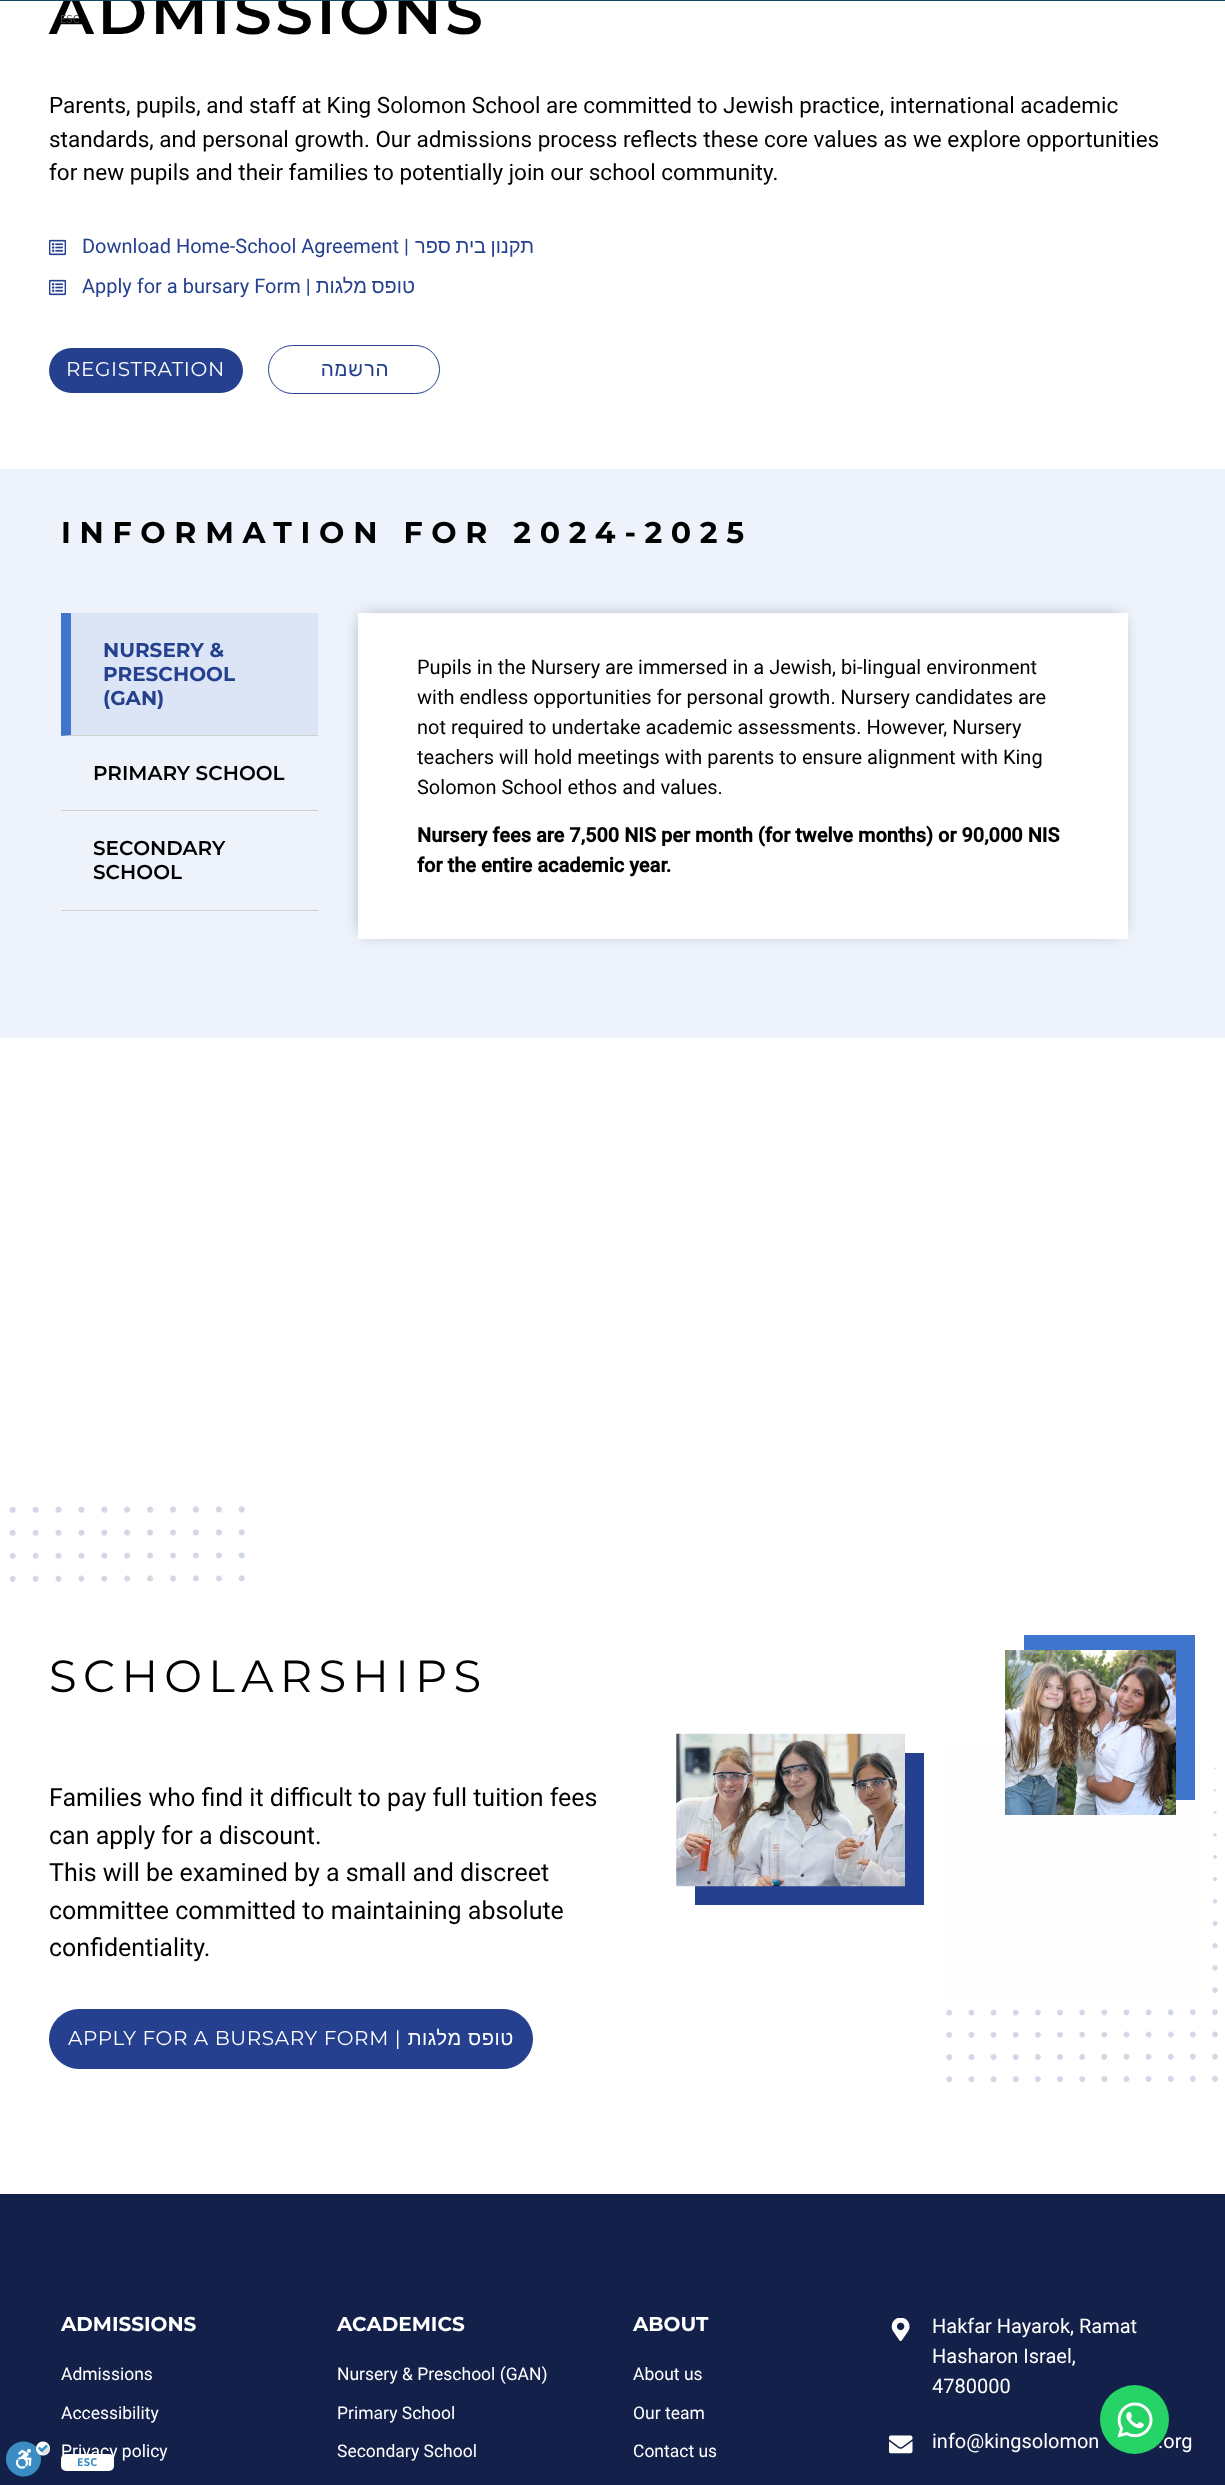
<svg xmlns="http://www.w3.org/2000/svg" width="1225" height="2485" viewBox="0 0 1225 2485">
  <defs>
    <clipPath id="clip1"><rect x="61" y="613" width="257" height="326"/></clipPath>
    <filter id="blur1" x="-50%" y="-200%" width="200%" height="500%"><feGaussianBlur stdDeviation="9"/></filter>
  </defs>
  <rect width="100%" height="100%" fill="#ffffff"/>
  <text x="49" y="34" font-family="Montserrat" font-size="60" font-weight="600" letter-spacing="3.5" fill="#000000">ADMISSIONS</text>
  <text x="49" y="113" font-family="Roboto" font-size="22.5" fill="#000000">Parents, pupils, and staff at King Solomon School are committed to Jewish practice, international academic</text>
  <text x="49" y="147" font-family="Roboto" font-size="22.5" fill="#000000">standards, and personal growth. Our admissions process reflects these core values as we explore opportunities</text>
  <text x="49" y="180" font-family="Roboto" font-size="22.5" fill="#000000">for new pupils and their families to potentially join our school community.</text>
  <image x="49" y="239" width="17" height="17" href="img1.png"/>
  <text x="82" y="253" font-family="Roboto" font-size="20" fill="#25408f">Download Home-School Agreement |</text>
  <text x="534" y="253" word-spacing="-1" font-family="Liberation Sans" font-size="20" direction="rtl" fill="#25408f">תקנון בית ספר</text>
  <image x="49" y="279" width="17" height="17" href="img1.png"/>
  <text x="82" y="293" font-family="Roboto" font-size="20" fill="#25408f">Apply for a bursary Form |</text>
  <text x="415" y="293" word-spacing="-1" font-family="Liberation Sans" font-size="20" direction="rtl" fill="#25408f">טופס מלגות</text>
  <rect x="49" y="348" width="194" height="45" rx="22.5" fill="#25408f"/>
  <text x="66" y="376" font-family="Montserrat" font-size="20" letter-spacing="0.6" fill="#ffffff">REGISTRATION</text>
  <rect x="268.5" y="345.5" width="171" height="48" rx="24" fill="none" stroke="#25408f"/>
  <text x="389" y="376" font-family="Rubik" font-size="21" letter-spacing="0.6" direction="rtl" fill="#25408f">הרשמה</text>
  <rect x="0" y="469" width="1225" height="569" fill="#edf2fb"/>
  <text x="61" y="543" font-family="Montserrat" font-size="30" font-weight="bold" letter-spacing="8.75" fill="#000000">INFORMATION FOR 2024-2025</text>
  <rect x="61" y="613" width="257" height="123" fill="#dce5f6"/>
  <path d="M318 736H61L71 735H318Z" fill="#d0d0d0"/>
  <g clip-path="url(#clip1)">
    <path d="M61 736V612H71V735Z" fill="#3f75cc"/>
  </g>
  <text x="103" y="657" font-family="Montserrat" font-size="20" font-weight="bold" fill="#25408f">NURSERY &amp;</text>
  <text x="103" y="681" font-family="Montserrat" font-size="20" font-weight="bold" fill="#25408f">PRESCHOOL</text>
  <text x="103" y="705" font-family="Montserrat" font-size="20" font-weight="bold" fill="#25408f">(GAN)</text>
  <rect x="61" y="810" width="257" height="1" fill="#d0d0d0"/>
  <text x="93" y="780" font-family="Montserrat" font-size="20" font-weight="600" fill="#000000">PRIMARY SCHOOL</text>
  <rect x="61" y="910" width="257" height="1" fill="#d0d0d0"/>
  <text x="93" y="855" font-family="Montserrat" font-size="20" font-weight="600" fill="#000000">SECONDARY</text>
  <text x="93" y="879" font-family="Montserrat" font-size="20" font-weight="600" fill="#000000">SCHOOL</text>
  <rect x="364" y="619" width="755" height="311" fill="#000000" fill-opacity="0.47" filter="url(#blur1)"/>
  <rect x="358" y="613" width="770" height="326" fill="#ffffff"/>
  <text x="417" y="674" font-family="Roboto" font-size="20" fill="#000000">Pupils in the Nursery are immersed in a Jewish, bi-lingual environment</text>
  <text x="417" y="704" font-family="Roboto" font-size="20" fill="#000000">with endless opportunities for personal growth. Nursery candidates are</text>
  <text x="417" y="734" font-family="Roboto" font-size="20" fill="#000000">not required to undertake academic assessments. However, Nursery</text>
  <text x="417" y="764" font-family="Roboto" font-size="20" fill="#000000">teachers will hold meetings with parents to ensure alignment with King</text>
  <text x="417" y="794" font-family="Roboto" font-size="20" fill="#000000">Solomon School ethos and values.</text>
  <text x="417" y="842" font-family="Roboto" font-size="20" font-weight="bold" fill="#000000">Nursery fees are 7,500 NIS per month (for twelve months) or 90,000 NIS</text>
  <text x="417" y="872" font-family="Roboto" font-size="20" font-weight="bold" fill="#000000">for the entire academic year.</text>
  <image x="9" y="1506" width="236" height="76" href="img2.png"/>
  <text x="49" y="1692" font-family="Montserrat" font-size="45" letter-spacing="6.25" fill="#000000">SCHOLARSHIPS</text>
  <text x="49" y="1806" font-family="Roboto" font-size="25" fill="#000000">Families who find it difficult to pay full tuition fees</text>
  <text x="49" y="1844" font-family="Roboto" font-size="25" fill="#000000">can apply for a discount.</text>
  <text x="49" y="1881" font-family="Roboto" font-size="25" fill="#000000">This will be examined by a small and discreet</text>
  <text x="49" y="1919" font-family="Roboto" font-size="25" fill="#000000">committee committed to maintaining absolute</text>
  <text x="49" y="1956" font-family="Roboto" font-size="25" fill="#000000">confidentiality.</text>
  <rect x="49.5" y="2009.5" width="483" height="59" rx="29.5" fill="#25408f" stroke="#25408f"/>
  <text x="68" y="2045" font-family="Montserrat" font-size="20" letter-spacing="0.6" fill="#ffffff">APPLY FOR A BURSARY FORM |</text>
  <text x="514" y="2045" font-family="Liberation Sans" font-size="20" letter-spacing="0.6" direction="rtl" fill="#ffffff">טופס מלגות</text>
  <path d="M695 1886V1905H924V1753H905V1886Z" fill="#25408f"/>
  <image x="676" y="1733" width="229" height="154" href="img3.png"/>
  <image x="946" y="1746" width="272" height="337" href="img5.png"/>
  <path d="M1024 1635V1650H1176V1800H1195V1635Z" fill="#3f75cc"/>
  <image x="1005" y="1650" width="171" height="165" href="img4.png"/>
  <rect x="0" y="0" width="1225" height="1" fill="#15495f"/>
  <text x="60" y="23" font-family="Assistant" font-size="12" fill="#4d4d4d">ESC</text>
  <rect x="0" y="2194" width="1225" height="291" fill="#12204a"/>
  <image x="6" y="2441" width="44" height="36" href="img6.png"/>
  <rect x="61" y="2454" width="53" height="17" rx="5" fill="#ffffff"/>
  <text x="77" y="2466" font-family="Assistant" font-size="12" font-weight="bold" fill="#3a8dc2">ESC</text>
  <text x="61" y="2331" font-family="Montserrat" font-size="20" font-weight="bold" fill="#ffffff">ADMISSIONS</text>
  <text x="61" y="2380" font-family="Roboto" font-size="17.5" fill="#ffffff">Admissions</text>
  <text x="61" y="2419" font-family="Roboto" font-size="17.5" fill="#ffffff">Accessibility</text>
  <text x="61" y="2457" font-family="Roboto" font-size="17.5" fill="#ffffff">Privacy policy</text>
  <text x="337" y="2331" font-family="Montserrat" font-size="20" font-weight="bold" fill="#ffffff">ACADEMICS</text>
  <text x="337" y="2380" font-family="Roboto" font-size="17.5" fill="#ffffff">Nursery &amp; Preschool (GAN)</text>
  <text x="337" y="2419" font-family="Roboto" font-size="17.5" fill="#ffffff">Primary School</text>
  <text x="337" y="2457" font-family="Roboto" font-size="17.5" fill="#ffffff">Secondary School</text>
  <text x="633" y="2331" font-family="Montserrat" font-size="20" font-weight="bold" fill="#ffffff">ABOUT</text>
  <text x="633" y="2380" font-family="Roboto" font-size="17.5" fill="#ffffff">About us</text>
  <text x="633" y="2419" font-family="Roboto" font-size="17.5" fill="#ffffff">Our team</text>
  <text x="633" y="2457" font-family="Roboto" font-size="17.5" fill="#ffffff">Contact us</text>
  <image x="891" y="2318" width="19" height="23" href="img7.png"/>
  <text x="932" y="2333" font-family="Roboto" font-size="20" fill="#ffffff">Hakfar Hayarok, Ramat</text>
  <text x="932" y="2363" font-family="Roboto" font-size="20" fill="#ffffff">Hasharon Israel,</text>
  <text x="932" y="2393" font-family="Roboto" font-size="20" fill="#ffffff">4780000</text>
  <image x="889" y="2435" width="24" height="19" href="img8.png"/>
  <text x="932" y="2448" font-family="Roboto" font-size="20" fill="#ffffff">info@kingsolomon</text>
  <text x="1158" y="2448" font-family="Roboto" font-size="20" fill="#ffffff">.org</text>
  <circle cx="1134.5" cy="2419.5" r="34.5" fill="#25d366"/>
  <image x="1117" y="2402" width="36" height="36" href="img9.png"/>
</svg>
